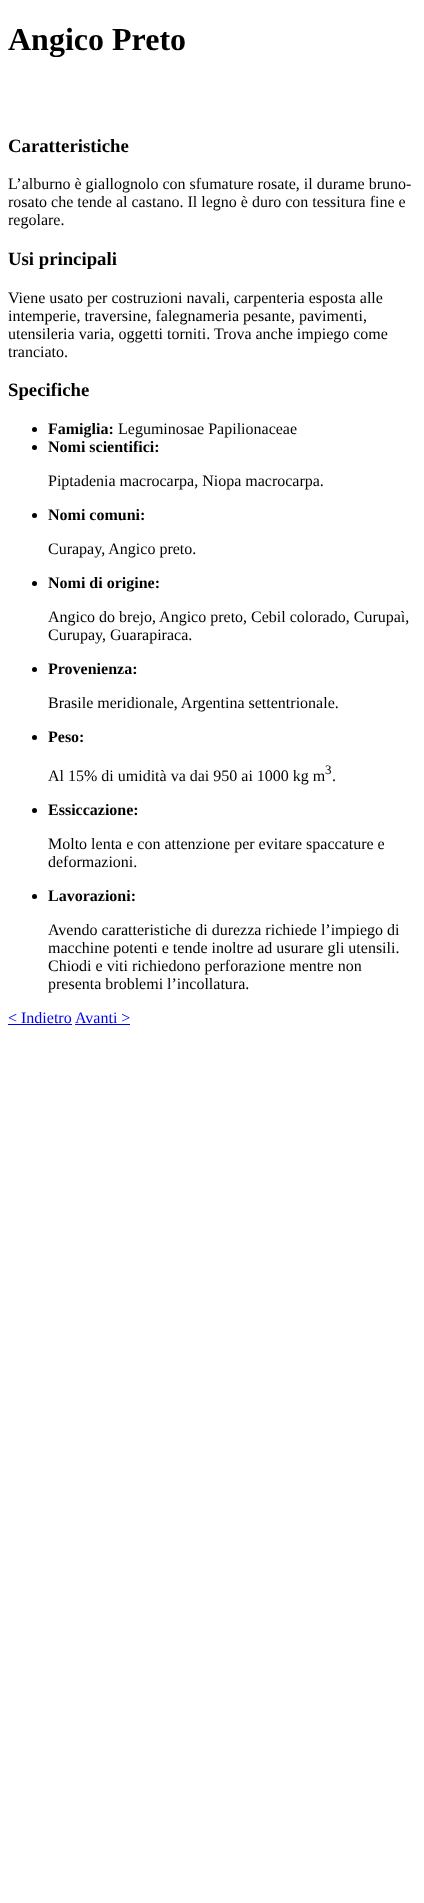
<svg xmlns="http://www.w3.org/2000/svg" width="424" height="1903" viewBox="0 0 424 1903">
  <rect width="100%" height="100%" fill="#ffffff"/>
  <text x="8" y="50" font-family="Liberation Serif" font-size="32" font-weight="bold" fill="#000000">Angico Preto</text>
  <text x="8" y="152" font-family="Liberation Serif" font-size="18.75" font-weight="bold" fill="#000000">Caratteristiche</text>
  <text x="8" y="189" font-family="Liberation Serif" font-size="16" fill="#000000">L’alburno è giallognolo con sfumature rosate, il durame bruno-</text>
  <text x="8" y="207" font-family="Liberation Serif" font-size="16" fill="#000000">rosato che tende al castano. Il legno è duro con tessitura fine e</text>
  <text x="8" y="225" font-family="Liberation Serif" font-size="16" fill="#000000">regolare.</text>
  <text x="8" y="265" font-family="Liberation Serif" font-size="18.75" font-weight="bold" fill="#000000">Usi principali</text>
  <text x="8" y="303" font-family="Liberation Serif" font-size="16" fill="#000000">Viene usato per costruzioni navali, carpenteria esposta alle</text>
  <text x="8" y="321" font-family="Liberation Serif" font-size="16" fill="#000000">intemperie, traversine, falegnameria pesante, pavimenti,</text>
  <text x="8" y="339" font-family="Liberation Serif" font-size="16" fill="#000000">utensileria varia, oggetti torniti. Trova anche impiego come</text>
  <text x="8" y="357" font-family="Liberation Serif" font-size="16" fill="#000000">tranciato.</text>
  <text x="8" y="396" font-family="Liberation Serif" font-size="18.75" font-weight="bold" fill="#000000">Specifiche</text>
  <circle cx="34.5" cy="429.5" r="2.5" fill="#000000"/>
  <text x="48" y="434" font-family="Liberation Serif" font-size="16" font-weight="bold" fill="#000000">Famiglia:</text>
  <text x="118" y="434" font-family="Liberation Serif" font-size="16" fill="#000000">Leguminosae Papilionaceae</text>
  <circle cx="34.5" cy="447.5" r="2.5" fill="#000000"/>
  <text x="48" y="452" font-family="Liberation Serif" font-size="16" font-weight="bold" fill="#000000">Nomi scientifici:</text>
  <text x="48" y="486" font-family="Liberation Serif" font-size="16" fill="#000000">Piptadenia macrocarpa, Niopa macrocarpa.</text>
  <circle cx="34.5" cy="515.5" r="2.5" fill="#000000"/>
  <text x="48" y="520" font-family="Liberation Serif" font-size="16" font-weight="bold" fill="#000000">Nomi comuni:</text>
  <text x="48" y="554" font-family="Liberation Serif" font-size="16" fill="#000000">Curapay, Angico preto.</text>
  <circle cx="34.5" cy="583.5" r="2.5" fill="#000000"/>
  <text x="48" y="588" font-family="Liberation Serif" font-size="16" font-weight="bold" fill="#000000">Nomi di origine:</text>
  <text x="48" y="622" font-family="Liberation Serif" font-size="16" fill="#000000">Angico do brejo, Angico preto, Cebil colorado, Curupaì,</text>
  <text x="48" y="640" font-family="Liberation Serif" font-size="16" fill="#000000">Curupay, Guarapiraca.</text>
  <circle cx="34.5" cy="669.5" r="2.5" fill="#000000"/>
  <text x="48" y="674" font-family="Liberation Serif" font-size="16" font-weight="bold" fill="#000000">Provenienza:</text>
  <text x="48" y="708" font-family="Liberation Serif" font-size="16" fill="#000000">Brasile meridionale, Argentina settentrionale.</text>
  <circle cx="34.5" cy="737.5" r="2.5" fill="#000000"/>
  <text x="48" y="742" font-family="Liberation Serif" font-size="16" font-weight="bold" fill="#000000">Peso:</text>
  <text x="48" y="781" font-family="Liberation Serif" font-size="16" fill="#000000">Al 15% di umidità va dai 950 ai 1000 kg m</text>
  <text x="325" y="774" font-family="Liberation Serif" font-size="13" fill="#000000">3</text>
  <text x="332" y="781" font-family="Liberation Serif" font-size="16" fill="#000000">.</text>
  <circle cx="34.5" cy="810.5" r="2.5" fill="#000000"/>
  <text x="48" y="815" font-family="Liberation Serif" font-size="16" font-weight="bold" fill="#000000">Essiccazione:</text>
  <text x="48" y="849" font-family="Liberation Serif" font-size="16" fill="#000000">Molto lenta e con attenzione per evitare spaccature e</text>
  <text x="48" y="867" font-family="Liberation Serif" font-size="16" fill="#000000">deformazioni.</text>
  <circle cx="34.5" cy="896.5" r="2.5" fill="#000000"/>
  <text x="48" y="901" font-family="Liberation Serif" font-size="16" font-weight="bold" fill="#000000">Lavorazioni:</text>
  <text x="48" y="935" font-family="Liberation Serif" font-size="16" fill="#000000">Avendo caratteristiche di durezza richiede l’impiego di</text>
  <text x="48" y="953" font-family="Liberation Serif" font-size="16" fill="#000000">macchine potenti e tende inoltre ad usurare gli utensili.</text>
  <text x="48" y="971" font-family="Liberation Serif" font-size="16" fill="#000000">Chiodi e viti richiedono perforazione mentre non</text>
  <text x="48" y="989" font-family="Liberation Serif" font-size="16" fill="#000000">presenta broblemi l’incollatura.</text>
  <text x="8" y="1023" font-family="Liberation Serif" font-size="16" fill="#0000ee">&lt; Indietro</text>
  <rect x="8" y="1024" width="64" height="1" fill="#0000ee"/>
  <text x="75" y="1023" font-family="Liberation Serif" font-size="16" fill="#0000ee">Avanti &gt;</text>
  <rect x="75" y="1024" width="55" height="1" fill="#0000ee"/>
</svg>
